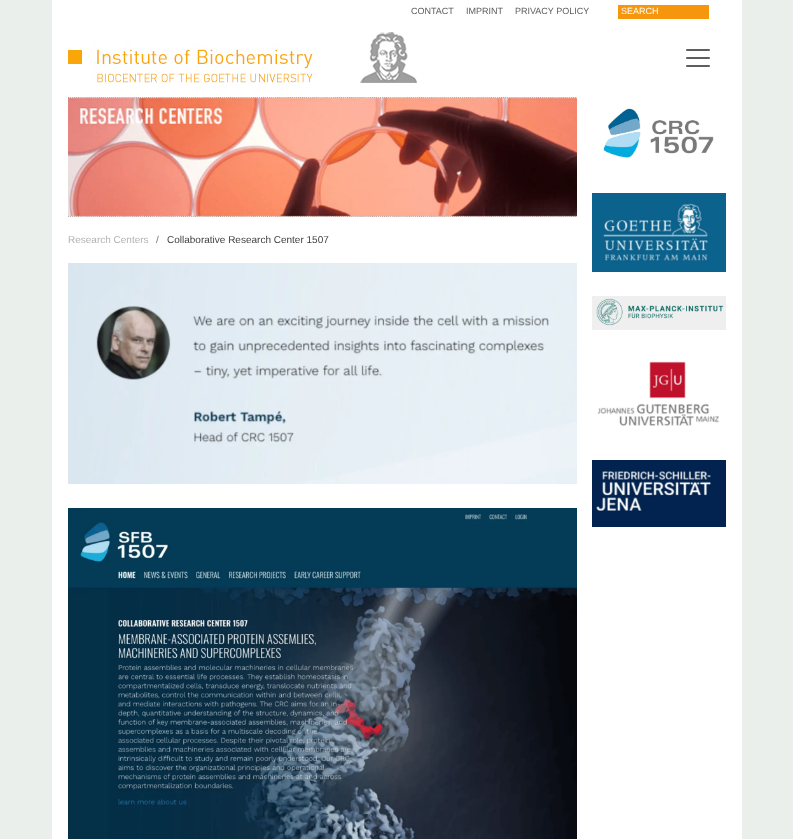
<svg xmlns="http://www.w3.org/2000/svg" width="793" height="839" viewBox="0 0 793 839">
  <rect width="100%" height="100%" fill="#eaefeb"/>
  <rect x="52" y="0" width="690" height="839" fill="#ffffff"/>
  <text x="411" y="14" font-family="Liberation Sans" font-size="9" fill="#5e5e5e">CONTACT</text>
  <text x="466" y="14" font-family="Liberation Sans" font-size="9" fill="#5e5e5e">IMPRINT</text>
  <text x="515" y="14" font-family="Liberation Sans" font-size="9" fill="#5e5e5e">PRIVACY POLICY</text>
  <rect x="618" y="5" width="91" height="14" fill="#f5960d"/>
  <text x="621" y="14" font-family="Liberation Sans" font-size="9" fill="#ffffff">SEARCH</text>
  <image x="68" y="32" width="349" height="51" href="img1.png"/>
  <image x="686" y="49" width="24" height="18" href="img2.png"/>
  <image x="68" y="97" width="509" height="120" href="img3.png"/>
  <text x="68" y="243" font-family="Liberation Sans" font-size="10" fill="#b3b3b3">Research Centers</text>
  <text x="156" y="243" font-family="Liberation Sans" font-size="10" fill="#6c757d">/</text>
  <text x="167" y="243" font-family="Liberation Sans" font-size="10" fill="#414141">Collaborative Research Center 1507</text>
  <image x="68" y="263" width="509" height="221" href="img4.png"/>
  <image x="68" y="508" width="509" height="331" href="img5.png"/>
  <image x="603" y="108" width="111" height="50" href="img6.png"/>
  <image x="592" y="193" width="134" height="79" href="img7.png"/>
  <image x="592" y="296" width="134" height="34" href="img8.png"/>
  <image x="597" y="361" width="122" height="65" href="img9.png"/>
  <image x="592" y="460" width="134" height="67" href="img10.png"/>
</svg>
